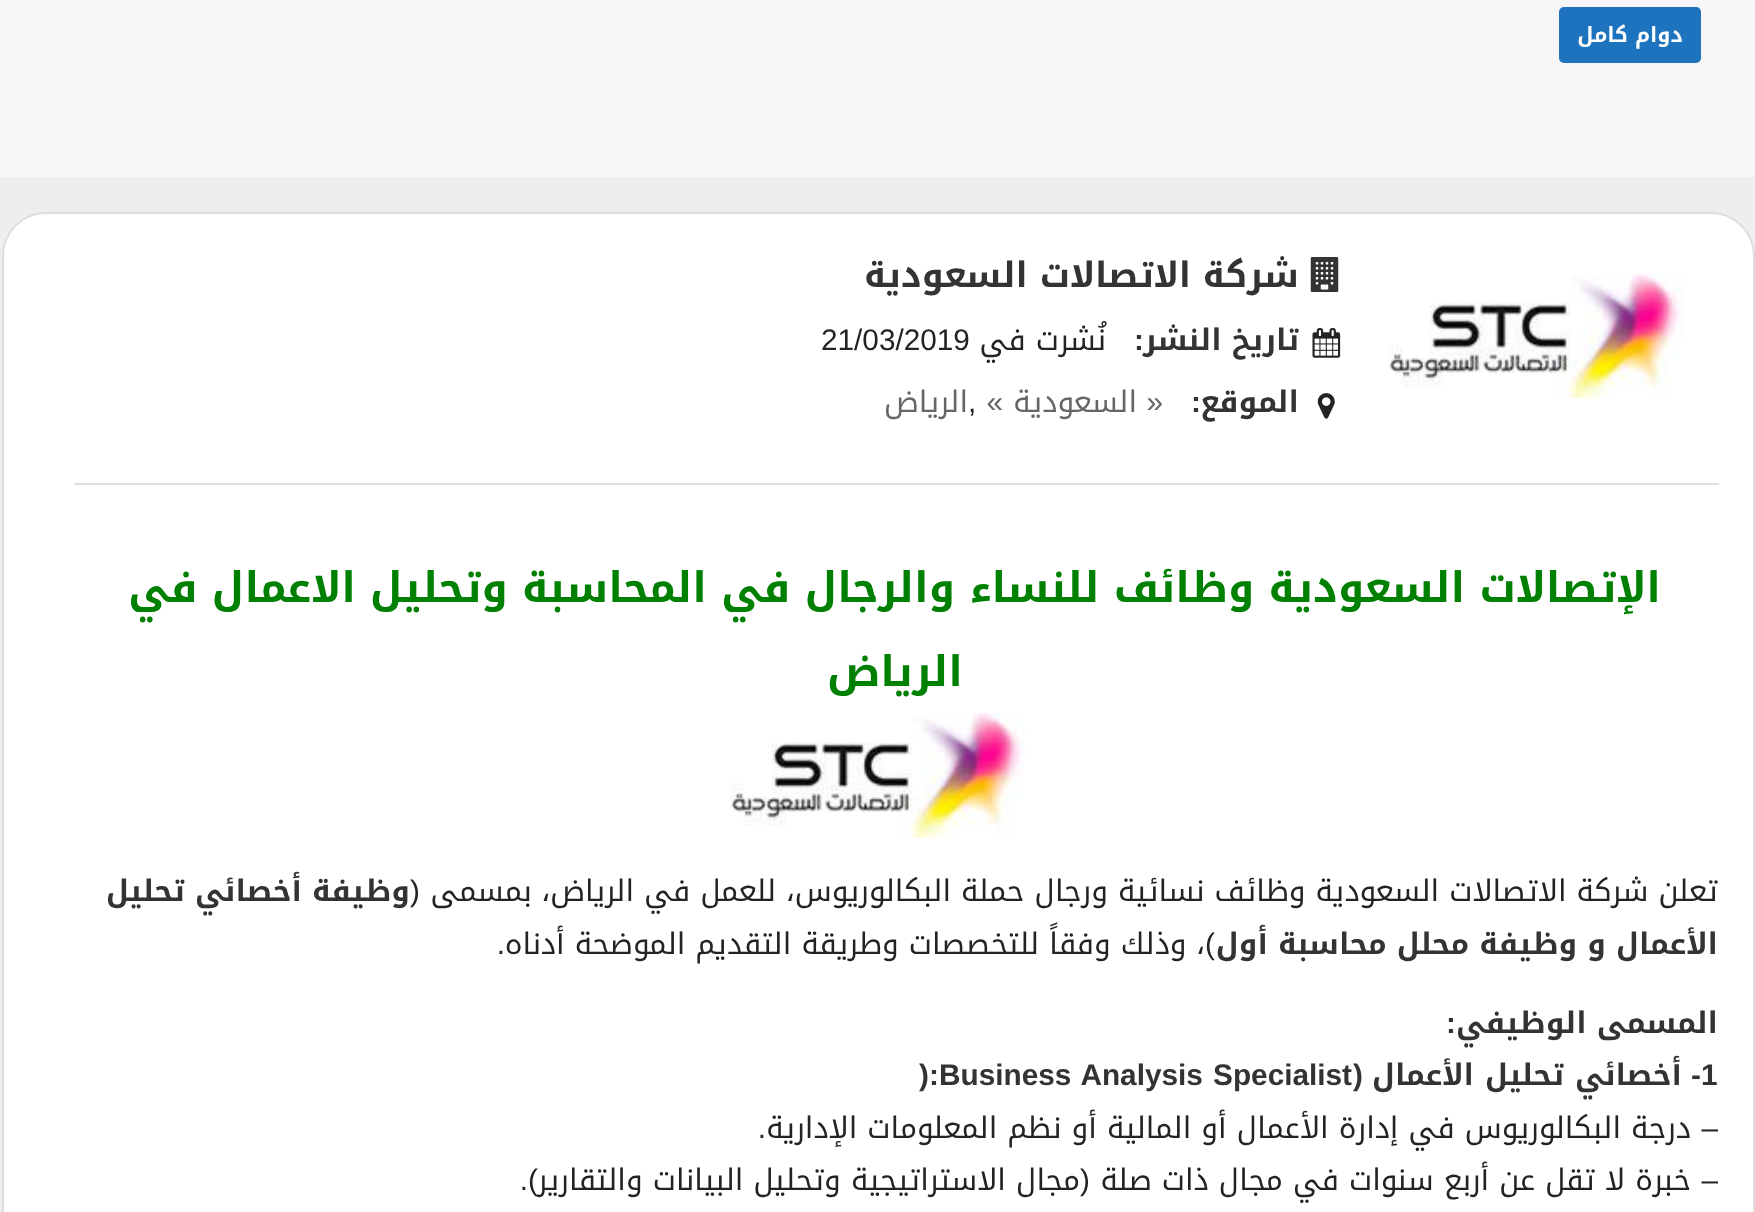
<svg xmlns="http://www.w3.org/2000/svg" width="1755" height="1212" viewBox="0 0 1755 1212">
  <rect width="100%" height="100%" fill="#eeeeee"/>
  <rect x="0" y="0" width="1755" height="177" fill="#f6f6f6"/>
  <rect x="1559" y="7" width="142" height="56" rx="5" fill="#1e73be"/>
  <text x="1683" y="42" font-family="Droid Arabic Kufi" font-size="21" font-weight="bold" direction="rtl" fill="#ffffff">دوام كامل</text>
  <rect x="3" y="213" width="1751" height="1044" rx="43" fill="#ffffff" stroke="#dddddd" stroke-width="2"/>
  <rect x="74" y="483" width="1645" height="2" fill="#e0e0e0"/>
  <image x="1388" y="274" width="295" height="125" href="img1.png"/>
  <image x="1310" y="257" width="29" height="35" href="img2.png"/>
  <text x="1299" y="287" font-family="Droid Arabic Kufi" font-size="35" font-weight="bold" direction="rtl" fill="#333333">شركة الاتصالات السعودية</text>
  <image x="1312" y="328" width="29" height="30" href="img3.png"/>
  <text x="1299" y="350" font-family="Droid Arabic Kufi" font-size="29.75" font-weight="bold" direction="rtl" fill="#333333">تاريخ النشر</text>
  <text x="1144" y="350" font-family="Liberation Sans" font-size="29.75" font-weight="bold" direction="rtl" fill="#333333">:</text>
  <text x="1106" y="350" font-family="Droid Arabic Kufi" font-size="29.75" direction="rtl" fill="#232323">نُشرت في</text>
  <text x="821" y="350" font-family="Liberation Sans" font-size="29.75" fill="#232323">21/03/2019</text>
  <image x="1317" y="393" width="18" height="26" href="img4.png"/>
  <text x="1299" y="412" font-family="Droid Arabic Kufi" font-size="29.75" font-weight="bold" direction="rtl" fill="#333333">الموقع</text>
  <text x="1201" y="412" font-family="Liberation Sans" font-size="29.75" font-weight="bold" direction="rtl" fill="#333333">:</text>
  <text x="1163" y="412" font-family="Liberation Sans" font-size="29.75" direction="rtl" fill="#666666">«</text>
  <text x="1137" y="412" font-family="Droid Arabic Kufi" font-size="29.75" direction="rtl" fill="#666666">السعودية</text>
  <text x="1003" y="412" font-family="Liberation Sans" font-size="29.75" direction="rtl" fill="#666666">»</text>
  <text x="968" y="412" font-family="Droid Arabic Kufi" font-size="29.75" direction="rtl" fill="#666666">الرياض</text>
  <text x="968" y="412" font-family="Liberation Sans" font-size="29.75" fill="#232323">,</text>
  <text x="1661" y="602" font-family="Droid Arabic Kufi" font-size="42" font-weight="bold" direction="rtl" fill="#008000">الإتصالات السعودية وظائف للنساء والرجال في المحاسبة وتحليل الاعمال في</text>
  <text x="963" y="686" font-family="Droid Arabic Kufi" font-size="42" font-weight="bold" direction="rtl" fill="#008000">الرياض</text>
  <image x="730" y="713" width="295" height="125" href="img5.png"/>
  <text x="1718" y="901" font-family="Droid Arabic Kufi" font-size="29.75" direction="rtl" fill="#232323">تعلن شركة الاتصالات السعودية وظائف نسائية ورجال حملة البكالوريوس، للعمل في الرياض، بمسمى</text>
  <text x="420" y="901" font-family="Liberation Sans" font-size="29.75" direction="rtl" fill="#232323">(</text>
  <text x="410" y="901" font-family="Droid Arabic Kufi" font-size="29.75" font-weight="bold" direction="rtl" fill="#333333">وظيفة أخصائي تحليل</text>
  <text x="1718" y="954" font-family="Droid Arabic Kufi" font-size="29.75" font-weight="bold" direction="rtl" fill="#333333">الأعمال و وظيفة محلل محاسبة أول</text>
  <text x="1215" y="954" font-family="Liberation Sans" font-size="29.75" direction="rtl" fill="#232323">)</text>
  <text x="1205" y="954" font-family="Droid Arabic Kufi" font-size="29.75" direction="rtl" fill="#232323">، وذلك وفقاً للتخصصات وطريقة التقديم الموضحة أدناه</text>
  <text x="505" y="954" font-family="Liberation Sans" font-size="29.75" direction="rtl" fill="#232323">.</text>
  <text x="1718" y="1033" font-family="Droid Arabic Kufi" font-size="29.75" font-weight="bold" direction="rtl" fill="#333333">المسمى الوظيفي</text>
  <text x="1456" y="1033" font-family="Liberation Sans" font-size="29.75" font-weight="bold" direction="rtl" fill="#333333">:</text>
  <text x="1701" y="1085" font-family="Liberation Sans" font-size="29.75" font-weight="bold" fill="#333333">1</text>
  <text x="1701" y="1085" font-family="Liberation Sans" font-size="29.75" font-weight="bold" direction="rtl" fill="#333333">-</text>
  <text x="1682" y="1085" word-spacing="1" font-family="Droid Arabic Kufi" font-size="29.75" font-weight="bold" direction="rtl" fill="#333333">أخصائي تحليل الأعمال</text>
  <text x="1363" y="1085" font-family="Liberation Sans" font-size="29.75" font-weight="bold" direction="rtl" fill="#333333">(</text>
  <text x="939" y="1085" word-spacing="2" font-family="Liberation Sans" font-size="29.75" font-weight="bold" fill="#333333">Business Analysis Specialist</text>
  <text x="919" y="1085" font-family="Liberation Sans" font-size="29.75" font-weight="bold" fill="#333333">):</text>
  <text x="1718" y="1138" font-family="Liberation Sans" font-size="29.75" direction="rtl" fill="#232323">–</text>
  <text x="1691" y="1138" font-family="Droid Arabic Kufi" font-size="29.75" direction="rtl" fill="#232323">درجة البكالوريوس في إدارة الأعمال أو المالية أو نظم المعلومات الإدارية</text>
  <text x="766" y="1138" font-family="Liberation Sans" font-size="29.75" direction="rtl" fill="#232323">.</text>
  <text x="1718" y="1190" font-family="Liberation Sans" font-size="29.75" direction="rtl" fill="#232323">–</text>
  <text x="1691" y="1190" font-family="Droid Arabic Kufi" font-size="29.75" direction="rtl" fill="#232323">خبرة لا تقل عن أربع سنوات في مجال ذات صلة</text>
  <text x="1090" y="1190" font-family="Liberation Sans" font-size="29.75" direction="rtl" fill="#232323">(</text>
  <text x="1080" y="1190" font-family="Droid Arabic Kufi" font-size="29.75" direction="rtl" fill="#232323">مجال الاستراتيجية وتحليل البيانات والتقارير</text>
  <text x="538" y="1190" font-family="Liberation Sans" font-size="29.75" direction="rtl" fill="#232323">).</text>
</svg>
